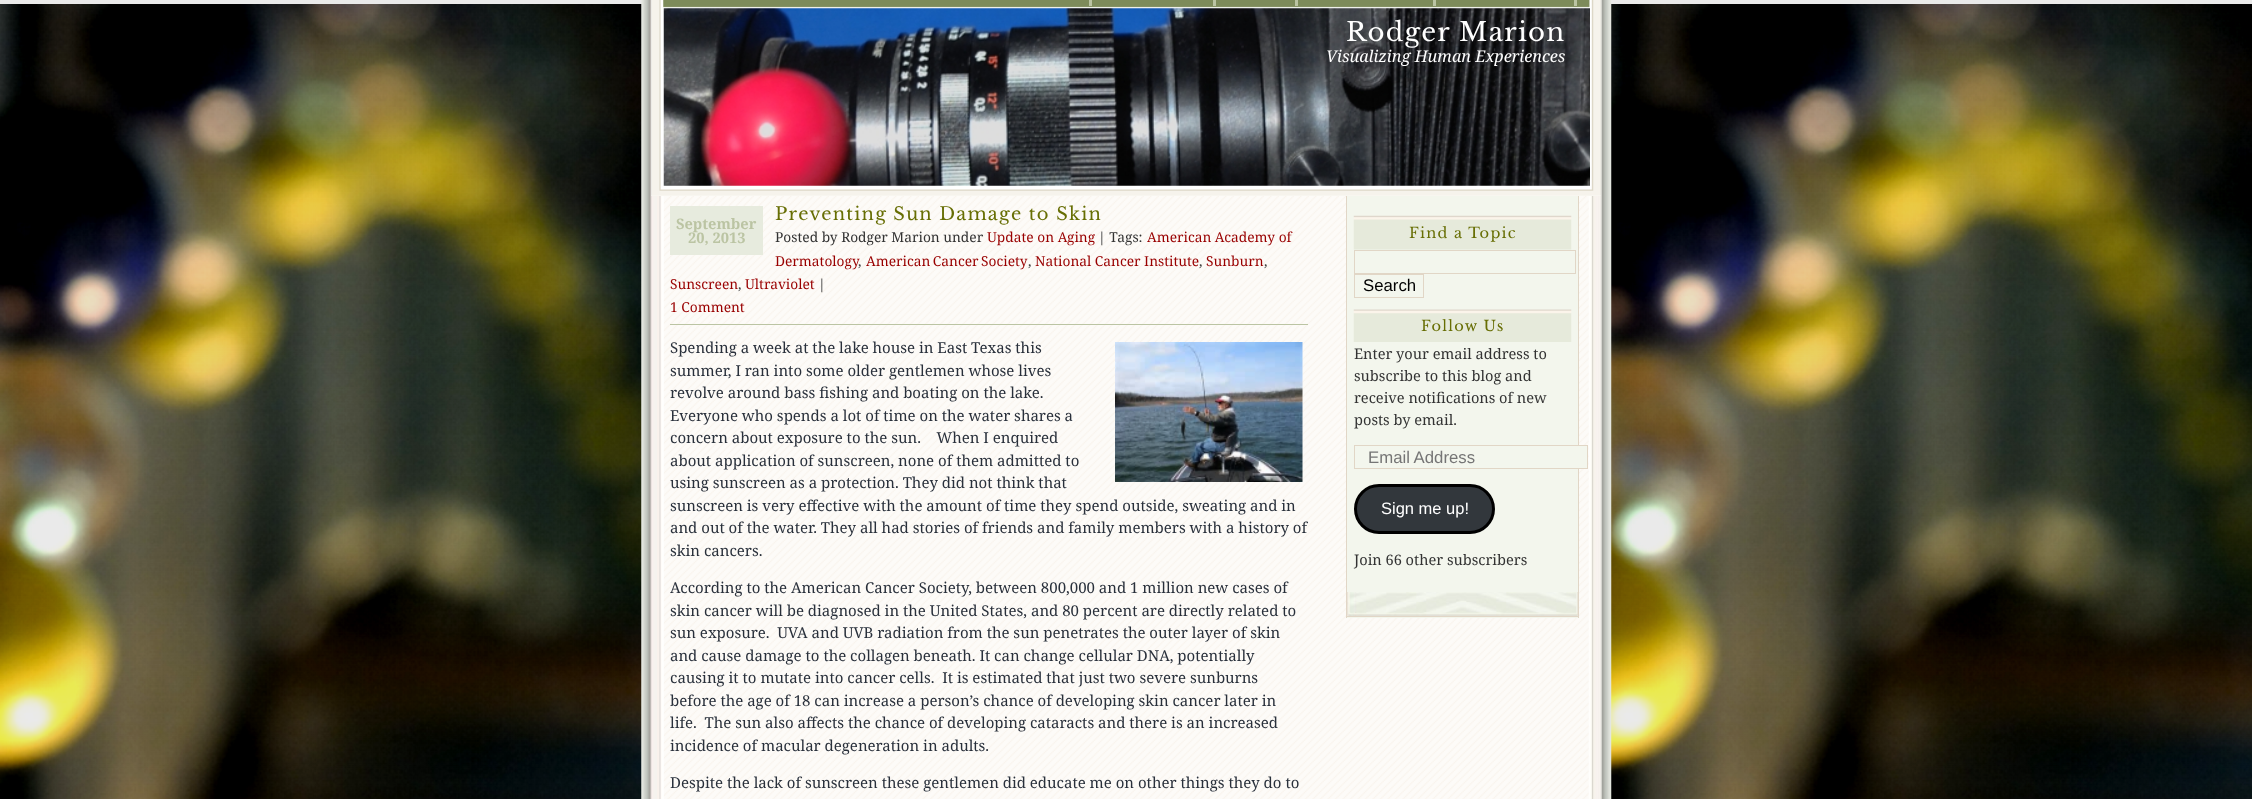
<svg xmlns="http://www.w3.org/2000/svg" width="2252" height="799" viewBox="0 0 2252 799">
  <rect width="100%" height="100%" fill="#ffffff"/>
  <image x="0" y="0" width="2252" height="799" href="img1.png"/>
  <image x="641" y="0" width="971" height="799" href="img2.png"/>
  <rect x="651" y="0" width="950" height="196" fill="#ffffff"/>
  <image x="651" y="0" width="950" height="196" href="img3.png"/>
  <rect x="1089" y="0" width="3" height="6" fill="#bbc4a3"/>
  <rect x="1213" y="0" width="3" height="6" fill="#bbc4a3"/>
  <rect x="1295" y="0" width="3" height="6" fill="#bbc4a3"/>
  <rect x="1433" y="0" width="3" height="6" fill="#bbc4a3"/>
  <rect x="1574" y="0" width="3" height="6" fill="#bbc4a3"/>
  <image x="663" y="8" width="927" height="178" href="img4.png"/>
  <text x="1346" y="41" font-family="Libre Baskerville" font-size="26" letter-spacing="1.25" fill="#ffffff">Rodger Marion</text>
  <text x="1326" y="62" font-family="Noto Serif" font-size="16.25" font-style="italic" fill="#ffffff">Visualizing Human Experiences</text>
  <image x="663" y="196" width="926" height="603" href="img5.png"/>
  <text x="775" y="220" font-family="Libre Baskerville" font-size="17.9" letter-spacing="1.25" fill="#676e04">Preventing Sun Damage to Skin</text>
  <text x="775" y="242" font-family="Noto Serif" font-size="13.75" fill="#333333">Posted by Rodger Marion under</text>
  <text x="987" y="242" font-family="Noto Serif" font-size="13.75" fill="#990000">Update on Aging</text>
  <text x="1098" y="242" font-family="Noto Serif" font-size="13.75" fill="#333333">| Tags:</text>
  <text x="1147" y="242" font-family="Noto Serif" font-size="13.75" fill="#990000">American Academy of</text>
  <text x="775" y="266" font-family="Noto Serif" font-size="13.75" fill="#990000">Dermatology</text>
  <text x="866" y="266" word-spacing="-1" font-family="Noto Serif" font-size="13.75" fill="#990000">American Cancer Society</text>
  <text x="1035" y="266" font-family="Noto Serif" font-size="13.75" fill="#990000">National Cancer Institute</text>
  <text x="1206" y="266" font-family="Noto Serif" font-size="13.75" fill="#990000">Sunburn</text>
  <text x="858" y="266" font-family="Noto Serif" font-size="13.75" fill="#333333">,</text>
  <text x="1028" y="266" font-family="Noto Serif" font-size="13.75" fill="#333333">,</text>
  <text x="1199" y="266" font-family="Noto Serif" font-size="13.75" fill="#333333">,</text>
  <text x="1264" y="266" font-family="Noto Serif" font-size="13.75" fill="#333333">,</text>
  <text x="670" y="289" font-family="Noto Serif" font-size="13.75" fill="#990000">Sunscreen</text>
  <text x="738" y="289" font-family="Noto Serif" font-size="13.75" fill="#333333">,</text>
  <text x="745" y="289" font-family="Noto Serif" font-size="13.75" fill="#990000">Ultraviolet</text>
  <text x="818" y="289" font-family="Noto Serif" font-size="13.75" fill="#333333">|</text>
  <text x="670" y="312" font-family="Noto Serif" font-size="13.75" fill="#990000">1 Comment</text>
  <rect x="670" y="206" width="93" height="49" fill="#e7ebde"/>
  <text x="676" y="229" font-family="Noto Serif" font-size="14.6" font-weight="bold" fill="#bbc4a3">September</text>
  <text x="688" y="243" font-family="Noto Serif" font-size="14.6" font-weight="bold" fill="#bbc4a3">20, 2013</text>
  <rect x="670" y="324" width="638" height="1" fill="#bbc4a3"/>
  <text x="670" y="353" font-family="Noto Serif" font-size="15" fill="#29303b">Spending a week at the lake house in East Texas this</text>
  <image x="1115" y="342" width="188" height="140" href="img6.png"/>
  <text x="670" y="376" font-family="Noto Serif" font-size="15" fill="#29303b">summer, I ran into some older gentlemen whose lives</text>
  <text x="670" y="398" font-family="Noto Serif" font-size="15" fill="#29303b">revolve around bass fishing and boating on the lake.</text>
  <text x="670" y="421" font-family="Noto Serif" font-size="15" fill="#29303b">Everyone who spends a lot of time on the water shares a</text>
  <text x="670" y="443" font-family="Noto Serif" font-size="15" fill="#29303b" xml:space="preserve">concern about exposure to the sun.    When I enquired</text>
  <text x="670" y="466" font-family="Noto Serif" font-size="15" fill="#29303b">about application of sunscreen, none of them admitted to</text>
  <text x="670" y="488" font-family="Noto Serif" font-size="15" fill="#29303b">using sunscreen as a protection. They did not think that</text>
  <text x="670" y="511" font-family="Noto Serif" font-size="15" fill="#29303b">sunscreen is very effective with the amount of time they spend outside, sweating and in</text>
  <text x="670" y="533" font-family="Noto Serif" font-size="15" fill="#29303b">and out of the water. They all had stories of friends and family members with a history of</text>
  <text x="670" y="556" font-family="Noto Serif" font-size="15" fill="#29303b">skin cancers.</text>
  <text x="670" y="593" font-family="Noto Serif" font-size="15" fill="#29303b">According to the American Cancer Society, between 800,000 and 1 million new cases of</text>
  <text x="670" y="616" font-family="Noto Serif" font-size="15" fill="#29303b">skin cancer will be diagnosed in the United States, and 80 percent are directly related to</text>
  <text x="670" y="638" font-family="Noto Serif" font-size="15" fill="#29303b" xml:space="preserve">sun exposure.  UVA and UVB radiation from the sun penetrates the outer layer of skin</text>
  <text x="670" y="661" font-family="Noto Serif" font-size="15" fill="#29303b">and cause damage to the collagen beneath. It can change cellular DNA, potentially</text>
  <text x="670" y="683" font-family="Noto Serif" font-size="15" fill="#29303b" xml:space="preserve">causing it to mutate into cancer cells.  It is estimated that just two severe sunburns</text>
  <text x="670" y="706" font-family="Noto Serif" font-size="15" fill="#29303b">before the age of 18 can increase a person’s chance of developing skin cancer later in</text>
  <text x="670" y="728" font-family="Noto Serif" font-size="15" fill="#29303b" xml:space="preserve">life.  The sun also affects the chance of developing cataracts and there is an increased</text>
  <text x="670" y="751" font-family="Noto Serif" font-size="15" fill="#29303b">incidence of macular degeneration in adults.</text>
  <text x="670" y="788" font-family="Noto Serif" font-size="15" fill="#29303b">Despite the lack of sunscreen these gentlemen did educate me on other things they do to</text>
  <rect x="1347" y="196" width="231" height="422" fill="#f3f6ed"/>
  <image x="1347" y="592" width="231" height="24" href="img7.png"/>
  <rect x="1578" y="196" width="1" height="422" fill="#e1d6c6"/>
  <rect x="1346" y="616" width="233" height="1" fill="#e1d6c6"/>
  <rect x="1346" y="196" width="1" height="422" fill="#e1d6c6"/>
  <image x="1353" y="215" width="219" height="35" href="img8.png"/>
  <text x="1409" y="238" font-family="Libre Baskerville" font-size="14.6" letter-spacing="1.25" fill="#676e04">Find a Topic</text>
  <rect x="1354.5" y="250.5" width="221" height="23" fill="none" stroke="#e1d6c6"/>
  <rect x="1354.5" y="274.5" width="69" height="23" fill="none" stroke="#e1d6c6"/>
  <text x="1363" y="291" font-family="Liberation Sans" font-size="16.75" fill="#000000">Search</text>
  <image x="1353" y="309" width="219" height="33" href="img9.png"/>
  <text x="1421" y="331" font-family="Libre Baskerville" font-size="14.6" letter-spacing="1.25" fill="#676e04">Follow Us</text>
  <text x="1354" y="359" font-family="Noto Serif" font-size="14.6" fill="#333333">Enter your email address to</text>
  <text x="1354" y="381" font-family="Noto Serif" font-size="14.6" fill="#333333">subscribe to this blog and</text>
  <text x="1354" y="403" font-family="Noto Serif" font-size="14.6" fill="#333333">receive notifications of new</text>
  <text x="1354" y="425" font-family="Noto Serif" font-size="14.6" fill="#333333">posts by email.</text>
  <rect x="1578" y="446" width="9" height="22" fill="#f3f6ed"/>
  <rect x="1354.5" y="445.5" width="233" height="23" fill="none" stroke="#e1d6c6"/>
  <text x="1368" y="463" font-family="Liberation Sans" font-size="16.75" fill="#757575">Email Address</text>
  <rect x="1355.5" y="485.5" width="138" height="47" rx="23.5" fill="#32373c" stroke="#000000" stroke-width="3"/>
  <text x="1381" y="514" font-family="Liberation Sans" font-size="16.5" fill="#ffffff">Sign me up!</text>
  <text x="1354" y="565" font-family="Noto Serif" font-size="14.6" fill="#333333">Join 66 other subscribers</text>
</svg>
